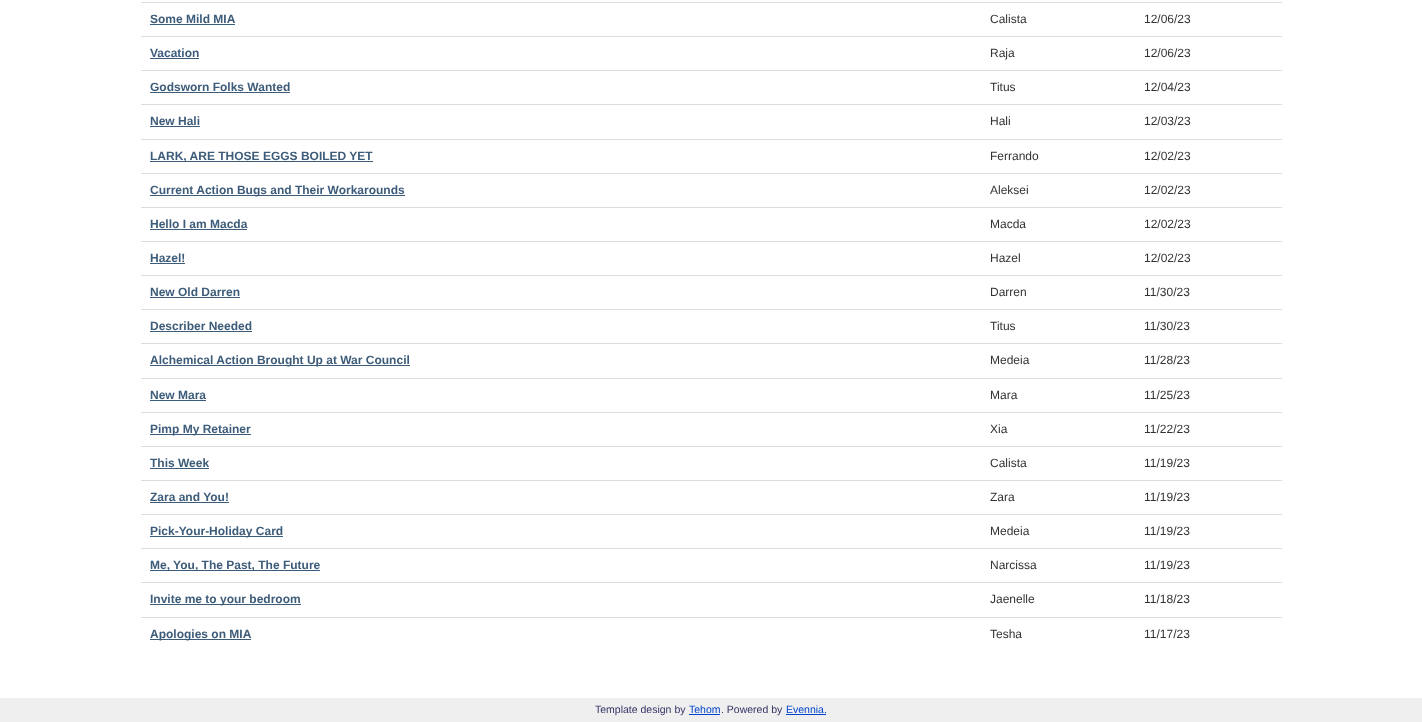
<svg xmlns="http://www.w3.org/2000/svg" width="1422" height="722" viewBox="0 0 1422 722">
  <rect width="100%" height="100%" fill="#ffffff"/>
  <text x="150" y="23" font-family="Liberation Sans" font-size="12" font-weight="bold" fill="#3d5c7a">Some Mild MIA</text>
  <rect x="150" y="24" width="85" height="1" fill="#3d5c7a"/>
  <text x="990" y="23" font-family="Liberation Sans" font-size="12" fill="#333333">Calista</text>
  <rect x="141" y="2" width="1141" height="1" fill="#dddddd"/>
  <text x="1144" y="23" font-family="Liberation Sans" font-size="12" fill="#333333">12/06/23</text>
  <text x="150" y="57" font-family="Liberation Sans" font-size="12" font-weight="bold" fill="#3d5c7a">Vacation</text>
  <rect x="150" y="58" width="49" height="1" fill="#3d5c7a"/>
  <text x="990" y="57" font-family="Liberation Sans" font-size="12" fill="#333333">Raja</text>
  <rect x="141" y="36" width="1141" height="1" fill="#dddddd"/>
  <text x="1144" y="57" font-family="Liberation Sans" font-size="12" fill="#333333">12/06/23</text>
  <text x="150" y="91" font-family="Liberation Sans" font-size="12" font-weight="bold" fill="#3d5c7a">Godsworn Folks Wanted</text>
  <rect x="150" y="92" width="140" height="1" fill="#3d5c7a"/>
  <text x="990" y="91" font-family="Liberation Sans" font-size="12" fill="#333333">Titus</text>
  <rect x="141" y="70" width="1141" height="1" fill="#dddddd"/>
  <text x="1144" y="91" font-family="Liberation Sans" font-size="12" fill="#333333">12/04/23</text>
  <text x="150" y="125" font-family="Liberation Sans" font-size="12" font-weight="bold" fill="#3d5c7a">New Hali</text>
  <rect x="150" y="126" width="50" height="1" fill="#3d5c7a"/>
  <text x="990" y="125" font-family="Liberation Sans" font-size="12" fill="#333333">Hali</text>
  <rect x="141" y="104" width="1141" height="1" fill="#dddddd"/>
  <text x="1144" y="125" font-family="Liberation Sans" font-size="12" fill="#333333">12/03/23</text>
  <rect x="150" y="161" width="223" height="1" fill="#3d5c7a"/>
  <text x="150" y="160" font-family="Liberation Sans" font-size="12" font-weight="bold" fill="#3d5c7a">LARK, ARE THOSE EGGS BOILED YET</text>
  <text x="990" y="160" font-family="Liberation Sans" font-size="12" fill="#333333">Ferrando</text>
  <rect x="141" y="139" width="1141" height="1" fill="#dddddd"/>
  <text x="1144" y="160" font-family="Liberation Sans" font-size="12" fill="#333333">12/02/23</text>
  <rect x="150" y="195" width="255" height="1" fill="#3d5c7a"/>
  <text x="150" y="194" font-family="Liberation Sans" font-size="12" font-weight="bold" fill="#3d5c7a">Current Action Bugs and Their Workarounds</text>
  <text x="990" y="194" font-family="Liberation Sans" font-size="12" fill="#333333">Aleksei</text>
  <rect x="141" y="173" width="1141" height="1" fill="#dddddd"/>
  <text x="1144" y="194" font-family="Liberation Sans" font-size="12" fill="#333333">12/02/23</text>
  <text x="150" y="228" font-family="Liberation Sans" font-size="12" font-weight="bold" fill="#3d5c7a">Hello I am Macda</text>
  <rect x="150" y="229" width="97" height="1" fill="#3d5c7a"/>
  <text x="990" y="228" font-family="Liberation Sans" font-size="12" fill="#333333">Macda</text>
  <rect x="141" y="207" width="1141" height="1" fill="#dddddd"/>
  <text x="1144" y="228" font-family="Liberation Sans" font-size="12" fill="#333333">12/02/23</text>
  <text x="150" y="262" font-family="Liberation Sans" font-size="12" font-weight="bold" fill="#3d5c7a">Hazel!</text>
  <rect x="150" y="263" width="35" height="1" fill="#3d5c7a"/>
  <text x="990" y="262" font-family="Liberation Sans" font-size="12" fill="#333333">Hazel</text>
  <rect x="141" y="241" width="1141" height="1" fill="#dddddd"/>
  <text x="1144" y="262" font-family="Liberation Sans" font-size="12" fill="#333333">12/02/23</text>
  <text x="150" y="296" font-family="Liberation Sans" font-size="12" font-weight="bold" fill="#3d5c7a">New Old Darren</text>
  <rect x="150" y="297" width="90" height="1" fill="#3d5c7a"/>
  <text x="990" y="296" font-family="Liberation Sans" font-size="12" fill="#333333">Darren</text>
  <rect x="141" y="275" width="1141" height="1" fill="#dddddd"/>
  <text x="1144" y="296" font-family="Liberation Sans" font-size="12" fill="#333333">11/30/23</text>
  <text x="150" y="330" font-family="Liberation Sans" font-size="12" font-weight="bold" fill="#3d5c7a">Describer Needed</text>
  <rect x="150" y="331" width="102" height="1" fill="#3d5c7a"/>
  <text x="990" y="330" font-family="Liberation Sans" font-size="12" fill="#333333">Titus</text>
  <rect x="141" y="309" width="1141" height="1" fill="#dddddd"/>
  <text x="1144" y="330" font-family="Liberation Sans" font-size="12" fill="#333333">11/30/23</text>
  <rect x="150" y="365" width="260" height="1" fill="#3d5c7a"/>
  <text x="150" y="364" font-family="Liberation Sans" font-size="12" font-weight="bold" fill="#3d5c7a">Alchemical Action Brought Up at War Council</text>
  <text x="990" y="364" font-family="Liberation Sans" font-size="12" fill="#333333">Medeia</text>
  <rect x="141" y="343" width="1141" height="1" fill="#dddddd"/>
  <text x="1144" y="364" font-family="Liberation Sans" font-size="12" fill="#333333">11/28/23</text>
  <text x="150" y="399" font-family="Liberation Sans" font-size="12" font-weight="bold" fill="#3d5c7a">New Mara</text>
  <rect x="150" y="400" width="56" height="1" fill="#3d5c7a"/>
  <text x="990" y="399" font-family="Liberation Sans" font-size="12" fill="#333333">Mara</text>
  <rect x="141" y="378" width="1141" height="1" fill="#dddddd"/>
  <text x="1144" y="399" font-family="Liberation Sans" font-size="12" fill="#333333">11/25/23</text>
  <rect x="150" y="434" width="101" height="1" fill="#3d5c7a"/>
  <text x="150" y="433" font-family="Liberation Sans" font-size="12" font-weight="bold" fill="#3d5c7a">Pimp My Retainer</text>
  <text x="990" y="433" font-family="Liberation Sans" font-size="12" fill="#333333">Xia</text>
  <rect x="141" y="412" width="1141" height="1" fill="#dddddd"/>
  <text x="1144" y="433" font-family="Liberation Sans" font-size="12" fill="#333333">11/22/23</text>
  <text x="150" y="467" font-family="Liberation Sans" font-size="12" font-weight="bold" fill="#3d5c7a">This Week</text>
  <rect x="150" y="468" width="59" height="1" fill="#3d5c7a"/>
  <text x="990" y="467" font-family="Liberation Sans" font-size="12" fill="#333333">Calista</text>
  <rect x="141" y="446" width="1141" height="1" fill="#dddddd"/>
  <text x="1144" y="467" font-family="Liberation Sans" font-size="12" fill="#333333">11/19/23</text>
  <text x="150" y="501" font-family="Liberation Sans" font-size="12" font-weight="bold" fill="#3d5c7a">Zara and You!</text>
  <rect x="150" y="502" width="79" height="1" fill="#3d5c7a"/>
  <text x="990" y="501" font-family="Liberation Sans" font-size="12" fill="#333333">Zara</text>
  <rect x="141" y="480" width="1141" height="1" fill="#dddddd"/>
  <text x="1144" y="501" font-family="Liberation Sans" font-size="12" fill="#333333">11/19/23</text>
  <rect x="150" y="536" width="133" height="1" fill="#3d5c7a"/>
  <text x="150" y="535" font-family="Liberation Sans" font-size="12" font-weight="bold" fill="#3d5c7a">Pick-Your-Holiday Card</text>
  <text x="990" y="535" font-family="Liberation Sans" font-size="12" fill="#333333">Medeia</text>
  <rect x="141" y="514" width="1141" height="1" fill="#dddddd"/>
  <text x="1144" y="535" font-family="Liberation Sans" font-size="12" fill="#333333">11/19/23</text>
  <rect x="150" y="570" width="170" height="1" fill="#3d5c7a"/>
  <text x="150" y="569" font-family="Liberation Sans" font-size="12" font-weight="bold" fill="#3d5c7a">Me, You, The Past, The Future</text>
  <text x="990" y="569" font-family="Liberation Sans" font-size="12" fill="#333333">Narcissa</text>
  <rect x="141" y="548" width="1141" height="1" fill="#dddddd"/>
  <text x="1144" y="569" font-family="Liberation Sans" font-size="12" fill="#333333">11/19/23</text>
  <rect x="150" y="604" width="151" height="1" fill="#3d5c7a"/>
  <text x="150" y="603" font-family="Liberation Sans" font-size="12" font-weight="bold" fill="#3d5c7a">Invite me to your bedroom</text>
  <text x="990" y="603" font-family="Liberation Sans" font-size="12" fill="#333333">Jaenelle</text>
  <rect x="141" y="582" width="1141" height="1" fill="#dddddd"/>
  <text x="1144" y="603" font-family="Liberation Sans" font-size="12" fill="#333333">11/18/23</text>
  <rect x="150" y="639" width="101" height="1" fill="#3d5c7a"/>
  <text x="150" y="638" font-family="Liberation Sans" font-size="12" font-weight="bold" fill="#3d5c7a">Apologies on MIA</text>
  <text x="990" y="638" font-family="Liberation Sans" font-size="12" fill="#333333">Tesha</text>
  <rect x="141" y="617" width="1141" height="1" fill="#dddddd"/>
  <text x="1144" y="638" font-family="Liberation Sans" font-size="12" fill="#333333">11/17/23</text>
  <rect x="0" y="698" width="1422" height="24" fill="#efefef"/>
  <text x="595" y="713" font-family="Liberation Sans" font-size="10.5" fill="#333366">Template design by</text>
  <text x="689" y="713" font-family="Liberation Sans" font-size="10.5" fill="#0044cc">Tehom</text>
  <text x="721" y="713" font-family="Liberation Sans" font-size="10.5" fill="#333366">. Powered by</text>
  <rect x="689" y="714" width="31" height="1" fill="#0044cc"/>
  <text x="786" y="713" font-family="Liberation Sans" font-size="10.5" fill="#0044cc">Evennia.</text>
  <rect x="786" y="714" width="40" height="1" fill="#0044cc"/>
</svg>
